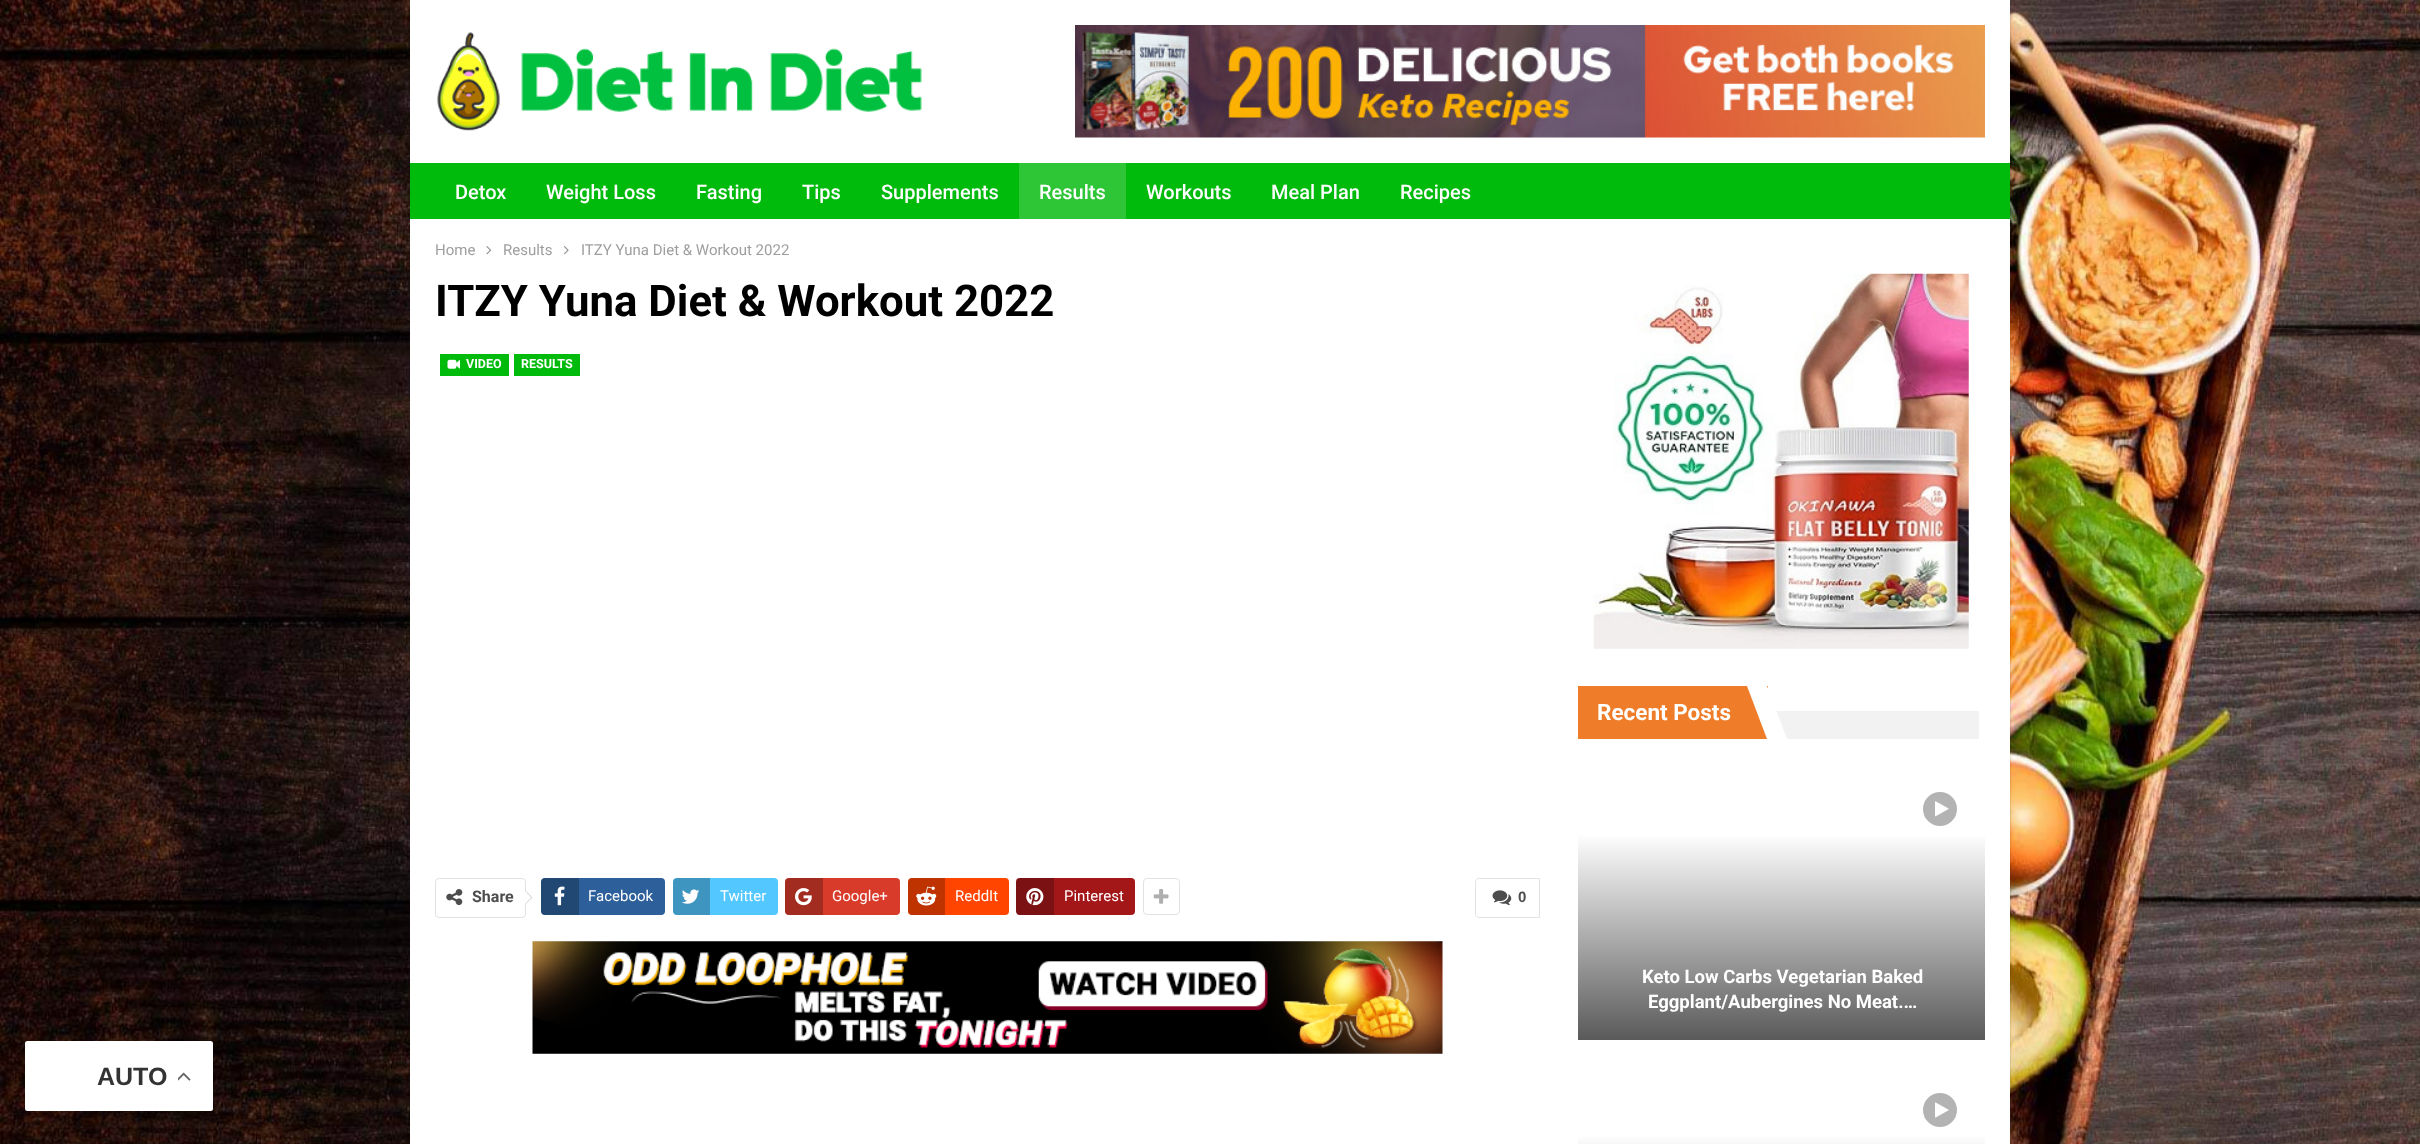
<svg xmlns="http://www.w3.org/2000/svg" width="2420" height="1144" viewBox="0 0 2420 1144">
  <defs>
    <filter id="blur1" x="-50%" y="-200%" width="200%" height="500%"><feGaussianBlur stdDeviation="1"/></filter>
    <linearGradient id="g1" gradientUnits="userSpaceOnUse" x1="1781" y1="833" x2="1781" y2="1041"><stop offset="0" stop-color="#ffffff"/><stop offset="1" stop-color="#595959"/></linearGradient>
    <linearGradient id="g2" gradientUnits="userSpaceOnUse" x1="1781" y1="1134" x2="1781" y2="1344"><stop offset="0" stop-color="#ffffff"/><stop offset="1" stop-color="#595959"/></linearGradient>
    <filter id="blur2" x="-50%" y="-200%" width="200%" height="500%"><feGaussianBlur stdDeviation="9.5"/></filter>
  </defs>
  <rect width="100%" height="100%" fill="#ffffff"/>
  <image x="0" y="0" width="2420" height="1144" href="img1.png"/>
  <rect x="410" y="0" width="1600" height="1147" fill="#000000" fill-opacity="0.27" filter="url(#blur1)"/>
  <rect x="410" y="0" width="1600" height="1144" fill="#ffffff"/>
  <image x="437" y="32" width="485" height="99" href="img2.png"/>
  <image x="1075" y="25" width="910" height="113" href="img3.png"/>
  <rect x="410" y="163" width="1600" height="56" fill="#00ba0c"/>
  <text x="455" y="199" font-family="Roboto" font-size="20" font-weight="500" fill="#ffffff">Detox</text>
  <text x="546" y="199" font-family="Roboto" font-size="20" font-weight="500" fill="#ffffff">Weight Loss</text>
  <text x="696" y="199" font-family="Roboto" font-size="20" font-weight="500" fill="#ffffff">Fasting</text>
  <text x="802" y="199" font-family="Roboto" font-size="20" font-weight="500" fill="#ffffff">Tips</text>
  <text x="881" y="199" font-family="Roboto" font-size="20" font-weight="500" fill="#ffffff">Supplements</text>
  <rect x="1019" y="163" width="107" height="56" fill="#ffffff" fill-opacity="0.18"/>
  <text x="1039" y="199" font-family="Roboto" font-size="20" font-weight="500" fill="#ffffff">Results</text>
  <text x="1146" y="199" font-family="Roboto" font-size="20" font-weight="500" fill="#ffffff">Workouts</text>
  <text x="1271" y="199" font-family="Roboto" font-size="20" font-weight="500" fill="#ffffff">Meal Plan</text>
  <text x="1400" y="199" font-family="Roboto" font-size="20" font-weight="500" fill="#ffffff">Recipes</text>
  <text x="435" y="255" font-family="Roboto" font-size="15" fill="#9e9e9e">Home</text>
  <image x="486" y="246" width="6" height="9" href="img4.png"/>
  <text x="503" y="255" font-family="Roboto" font-size="15" fill="#9e9e9e">Results</text>
  <image x="563" y="246" width="6" height="9" href="img5.png"/>
  <text x="581" y="255" font-family="Roboto" font-size="15" fill="#9e9e9e">ITZY Yuna Diet &amp; Workout 2022</text>
  <text x="435" y="316" font-family="Roboto" font-size="43.75" font-weight="bold" fill="#000000">ITZY Yuna Diet &amp; Workout 2022</text>
  <rect x="440" y="354" width="69" height="22" fill="#00ba0c"/>
  <image x="447" y="359" width="13" height="10" href="img6.png"/>
  <text x="466" y="368" font-family="Roboto" font-size="12.5" font-weight="bold" fill="#ffffff">VIDEO</text>
  <rect x="514" y="354" width="66" height="22" fill="#00ba0c"/>
  <text x="521" y="368" font-family="Roboto" font-size="12.5" font-weight="bold" fill="#ffffff">RESULTS</text>
  <rect x="435.5" y="878.5" width="90" height="39" rx="3.5" fill="none" stroke="#e2e2e2"/>
  <image x="446" y="889" width="17" height="17" href="img7.png"/>
  <text x="472" y="902" font-family="Roboto" font-size="16" font-weight="bold" fill="#4d4d4d">Share</text>
  <path d="M525 905V890L532.5 897.5Z" fill="#d7d7d7"/>
  <path d="M525 904V891L531 897.5Z" fill="#ffffff"/>
  <rect x="541" y="878" width="124" height="37" rx="4" fill="#2d5f9a"/>
  <path d="M545 878H579V915H545C543 915 541 913 541 911V882C541 880 543 878 545 878Z" fill="#000000" fill-opacity="0.25"/>
  <image x="554" y="886" width="11" height="20" href="img8.png"/>
  <text x="588" y="901" font-family="Roboto" font-size="15" fill="#ffffff">Facebook</text>
  <rect x="673" y="878" width="105" height="37" rx="4" fill="#53c7ff"/>
  <path d="M677 878H710V915H677C675 915 673 913 673 911V882C673 880 675 878 677 878Z" fill="#000000" fill-opacity="0.25"/>
  <image x="682" y="889" width="18" height="15" href="img9.png"/>
  <text x="720" y="901" font-family="Roboto" font-size="15" fill="#ffffff">Twitter</text>
  <rect x="785" y="878" width="115" height="37" rx="4" fill="#d93b2b"/>
  <path d="M789 878H823V915H789C787 915 785 913 785 911V882C785 880 787 878 789 878Z" fill="#000000" fill-opacity="0.25"/>
  <image x="795" y="888" width="17" height="18" href="img10.png"/>
  <text x="832" y="901" font-family="Roboto" font-size="15" fill="#ffffff">Google+</text>
  <rect x="908" y="878" width="101" height="37" rx="4" fill="#ff4500"/>
  <path d="M912 878H945V915H912C910 915 908 913 908 911V882C908 880 910 878 912 878Z" fill="#000000" fill-opacity="0.25"/>
  <image x="916" y="886" width="21" height="20" href="img11.png"/>
  <text x="955" y="901" font-family="Roboto" font-size="15" fill="#ffffff">ReddIt</text>
  <rect x="1016" y="878" width="119" height="37" rx="4" fill="#a41719"/>
  <path d="M1020 878H1054V915H1020C1018 915 1016 913 1016 911V882C1016 880 1018 878 1020 878Z" fill="#000000" fill-opacity="0.25"/>
  <image x="1026" y="888" width="18" height="18" href="img12.png"/>
  <text x="1064" y="901" font-family="Roboto" font-size="15" fill="#ffffff">Pinterest</text>
  <rect x="1143.5" y="878.5" width="36" height="36" rx="3.5" fill="none" stroke="#e2e2e2"/>
  <image x="1153" y="889" width="16" height="15" href="img13.png"/>
  <path d="M1479 878.5H1539.5V917.5H1479C1477 917.5 1475.5 916 1475.5 914V882C1475.5 880 1477 878.5 1479 878.5Z" fill="none" stroke="#e2e2e2"/>
  <image x="1492" y="890" width="20" height="16" href="img14.png"/>
  <text x="1518" y="902" font-family="Liberation Sans" font-size="15" font-weight="bold" fill="#4d4d4d">0</text>
  <image x="532" y="941" width="911" height="113" href="img15.png"/>
  <image x="1593" y="273" width="376" height="376" href="img16.png"/>
  <rect x="1578" y="686" width="190" height="53" fill="#ee7c28"/>
  <text x="1597" y="720" font-family="Roboto" font-size="22.5" font-weight="bold" fill="#ffffff">Recent Posts</text>
  <rect x="1776" y="711" width="203" height="28" fill="#f2f2f2"/>
  <path d="M1747 686H1767L1787 739H1767Z" fill="#ffffff"/>
  <circle cx="1940" cy="809" r="18.5" fill="#b3b3b3" stroke="#ffffff" stroke-width="3"/>
  <image x="1935" y="801" width="14" height="16" href="img17.png"/>
  <rect x="1578" y="836" width="407" height="204" fill="url(#g1)"/>
  <text x="1642" y="983" font-family="Roboto" font-size="18.5" font-weight="bold" fill="#ffffff">Keto Low Carbs Vegetarian Baked</text>
  <text x="1648" y="1008" font-family="Roboto" font-size="18.5" font-weight="bold" fill="#ffffff">Eggplant/Aubergines No Meat.…</text>
  <circle cx="1940" cy="1110" r="18.5" fill="#b3b3b3" stroke="#ffffff" stroke-width="3"/>
  <image x="1935" y="1102" width="14" height="16" href="img18.png"/>
  <rect x="1578" y="1137" width="407" height="7" fill="url(#g2)"/>
  <rect x="25" y="1048" width="188" height="70" rx="2.5" fill="#000000" fill-opacity="0.15" filter="url(#blur2)"/>
  <rect x="25" y="1041" width="188" height="70" rx="2.5" fill="#ffffff"/>
  <text x="97" y="1085" font-family="Liberation Sans" font-size="25" font-weight="bold" fill="#333333">AUTO</text>
  <image x="178" y="1072" width="13" height="9" href="img19.png"/>
</svg>
